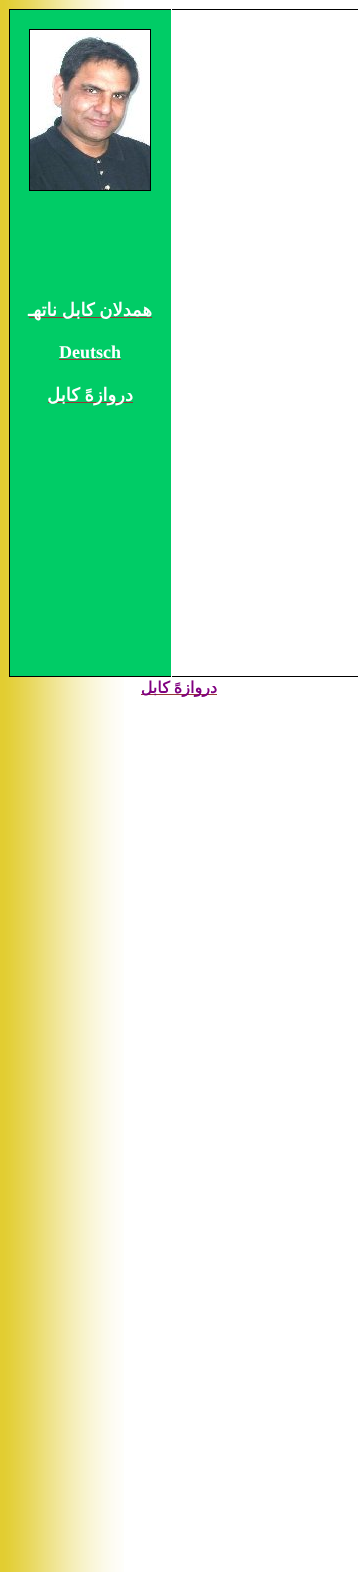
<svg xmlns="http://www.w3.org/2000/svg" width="358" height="1572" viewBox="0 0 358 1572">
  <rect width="100%" height="100%" fill="#ffffff"/>
  <image x="0" y="0" width="124" height="1572" href="img1.png"/>
  <rect x="172" y="9" width="186" height="1" fill="#000000"/>
  <rect x="172" y="676" width="186" height="1" fill="#000000"/>
  <rect x="10" y="10" width="161" height="666" fill="#00cc66"/>
  <rect x="9" y="9" width="162" height="1" fill="#000000"/>
  <rect x="9" y="676" width="162" height="1" fill="#000000"/>
  <rect x="9" y="9" width="1" height="668" fill="#000000"/>
  <rect x="29.5" y="29.5" width="121" height="161" fill="none" stroke="#000000"/>
  <image x="30" y="30" width="120" height="160" href="img2.png"/>
  <rect x="29" y="317" width="123" height="1" fill="#983738"/>
  <text x="152" y="316" word-spacing="-1" font-family="DejaVu Sans" font-size="18" font-weight="bold" direction="rtl" fill="#ffffff">همدلان کابل ناتهـ</text>
  <text x="59" y="358" font-family="Liberation Serif" font-size="18" font-weight="bold" fill="#ffffff">Deutsch</text>
  <rect x="59" y="359" width="62" height="1" fill="#983738"/>
  <rect x="48" y="402" width="85" height="1" fill="#983738"/>
  <text x="133" y="401" word-spacing="-1" font-family="DejaVu Sans" font-size="18" font-weight="bold" direction="rtl" fill="#ffffff">دروازهً کابل</text>
  <rect x="141" y="694" width="76" height="1" fill="#983738"/>
  <text x="217" y="693" word-spacing="-1" font-family="DejaVu Sans" font-size="16" font-weight="bold" direction="rtl" fill="#800080">دروازهً کابل</text>
</svg>
